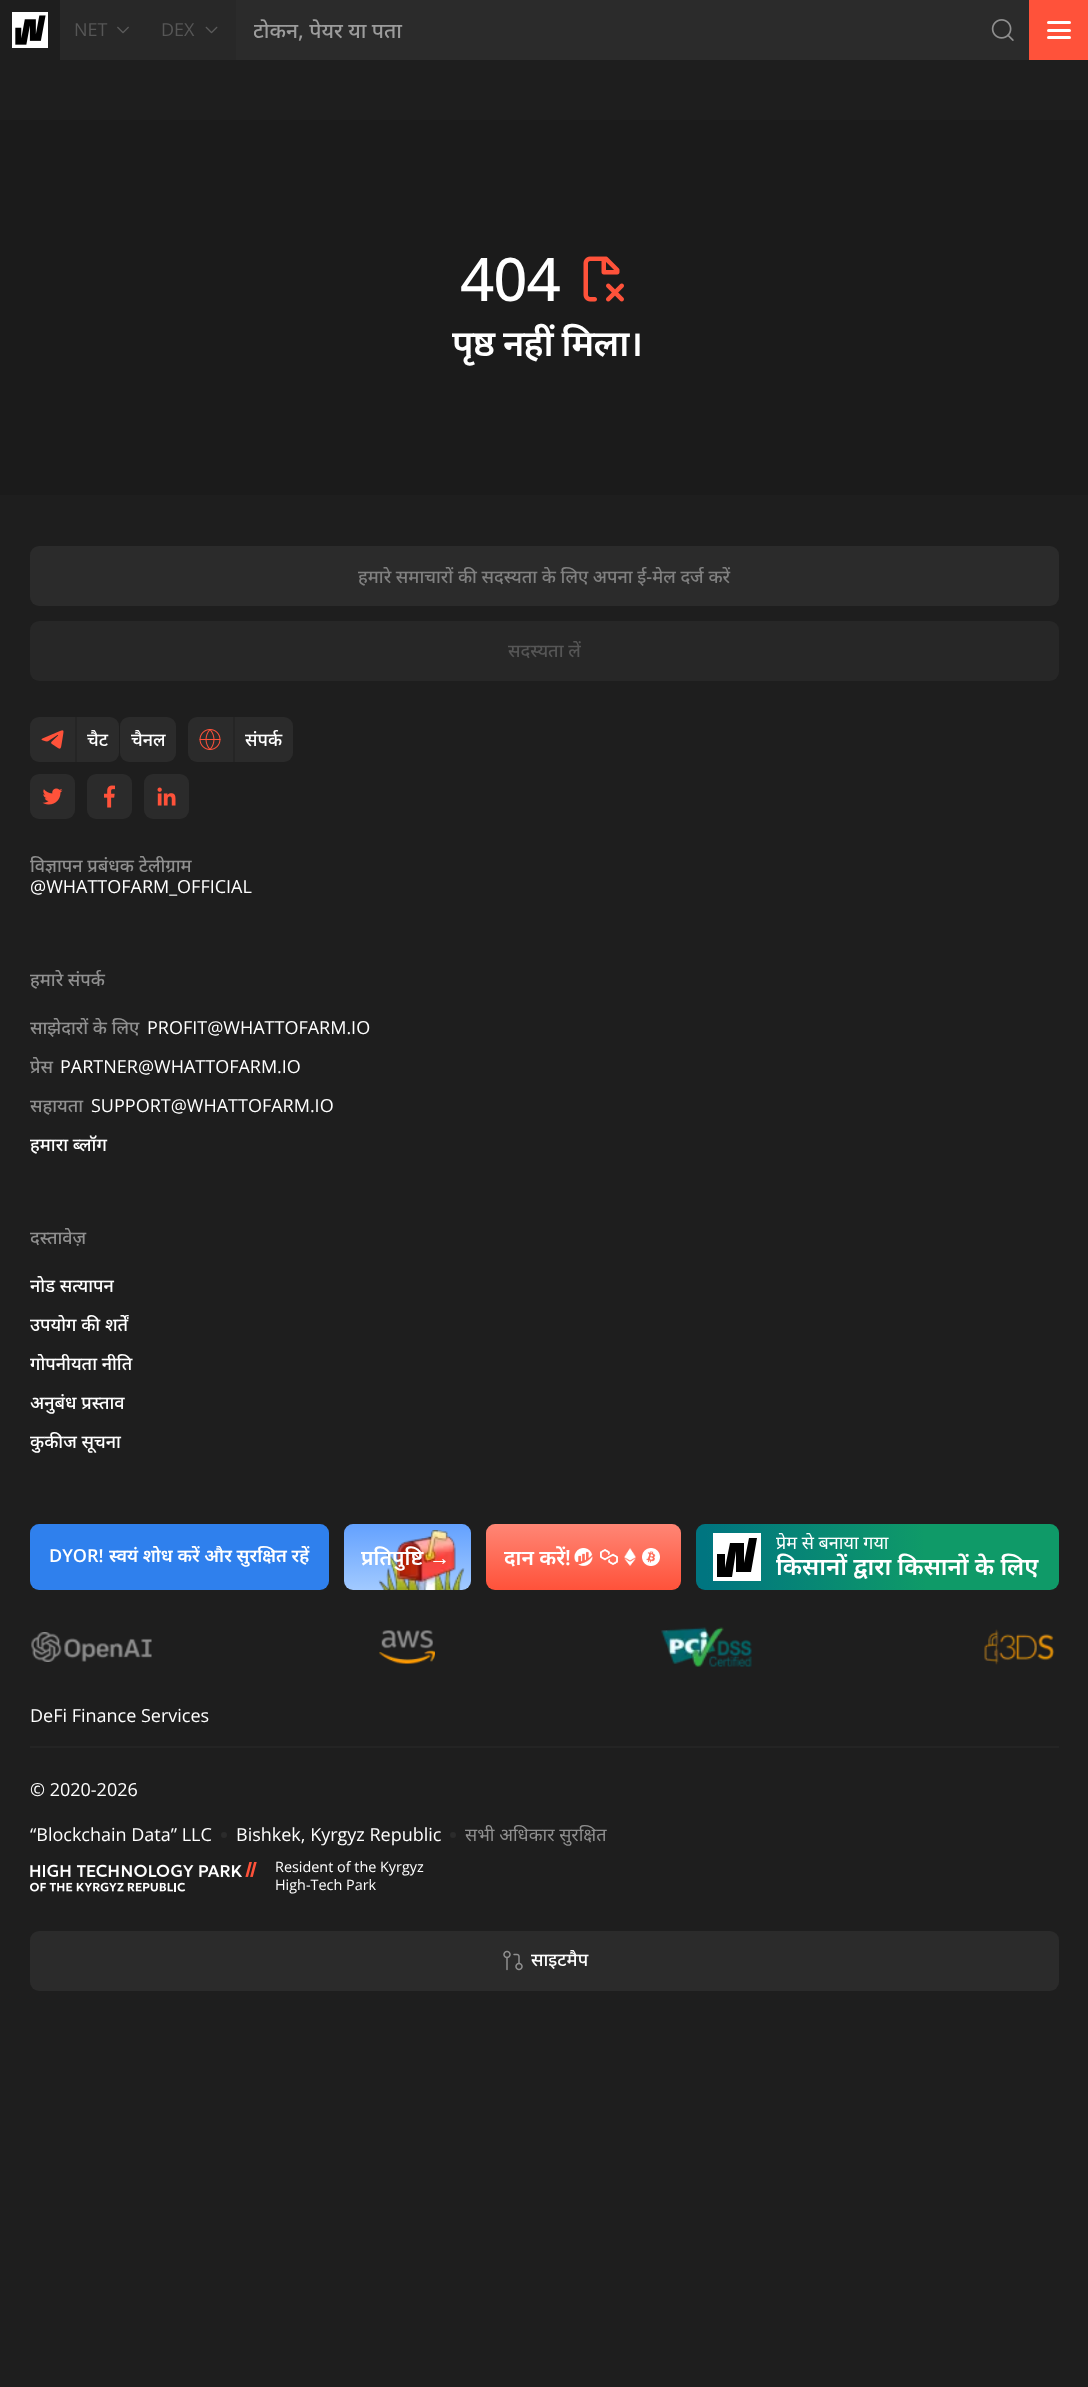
<svg xmlns="http://www.w3.org/2000/svg" width="1088" height="2387" viewBox="0 0 1088 2387">
  <defs>
    <clipPath id="clip1"><rect x="254" y="17" width="715" height="28"/></clipPath>
    <linearGradient id="g1" gradientUnits="userSpaceOnUse" x1="407" y1="1524" x2="407" y2="1594"><stop offset="0" stop-color="#63a1ff"/><stop offset="1" stop-color="#a5ccff"/></linearGradient>
    <linearGradient id="g2" gradientUnits="userSpaceOnUse" x1="584" y1="1524" x2="584" y2="1590"><stop offset="0" stop-color="#ff8675"/><stop offset="1" stop-color="#ff523a"/></linearGradient>
    <linearGradient id="g3" gradientUnits="userSpaceOnUse" x1="1060" y1="1551" x2="695" y2="1563"><stop offset="0.37" stop-color="#0f9a68"/><stop offset="0.97" stop-color="#007580"/></linearGradient>
  </defs>
  <rect width="100%" height="100%" fill="#1e1e1e"/>
  <image x="12" y="12" width="36" height="36" href="img1.png"/>
  <rect x="60" y="0" width="176" height="60" fill="#282828"/>
  <text x="74" y="36" font-family="Open Sans" font-size="18" fill="#565656">NET</text>
  <image x="117" y="26" width="12" height="8" href="img2.png"/>
  <text x="161" y="36" font-family="Open Sans" font-size="18" fill="#565656">DEX</text>
  <image x="205" y="26" width="13" height="8" href="img3.png"/>
  <rect x="236" y="0" width="793" height="60" fill="#2b2b2b"/>
  <g clip-path="url(#clip1)">
    <text x="253" y="38" font-family="Noto Sans" font-size="21" font-weight="500" fill="#9c9c9c">टोकन, पेयर या पता</text>
  </g>
  <image x="991" y="19" width="23" height="22" href="img4.png"/>
  <rect x="1029" y="0" width="59" height="60" fill="#ff523a"/>
  <rect x="1047" y="29" width="24" height="3" rx="1.5" fill="#ffffff"/>
  <rect x="1047" y="21" width="24" height="3" rx="1.5" fill="#ffffff"/>
  <rect x="1047" y="36" width="24" height="3" rx="1.5" fill="#ffffff"/>
  <rect x="0" y="120" width="1088" height="375" fill="#1b1b1b"/>
  <text x="460" y="301" font-family="Open Sans" font-size="60" font-weight="500" letter-spacing="-1" fill="#ffffff">404</text>
  <image x="583" y="256" width="41" height="46" href="img5.png"/>
  <text x="452" y="356" font-family="Noto Sans" font-size="36" font-weight="600" letter-spacing="-0.75" fill="#ffffff">पृष्ठ नहीं मिला।</text>
  <rect x="30" y="546" width="1029" height="60" rx="9" fill="#2b2b2b"/>
  <text x="358" y="583" font-family="Noto Sans" font-size="18" font-weight="500" fill="#808080">हमारे समाचारों की सदस्यता के लिए अपना ई-मेल दर्ज करें</text>
  <rect x="30" y="621" width="1029" height="60" rx="9" fill="#272727"/>
  <text x="508" y="657" font-family="Noto Sans" font-size="18" font-weight="500" fill="#565656">सदस्यता लें</text>
  <rect x="30" y="717" width="89" height="45" rx="9" fill="#2b2b2b"/>
  <image x="41" y="730" width="23" height="19" href="img6.png"/>
  <rect x="75" y="717" width="2" height="45" fill="#252525"/>
  <text x="87" y="746" font-family="Noto Sans" font-size="18" font-weight="500" fill="#ffffff">चैट</text>
  <rect x="120" y="717" width="56" height="45" rx="9" fill="#2b2b2b"/>
  <text x="131" y="746" font-family="Noto Sans" font-size="18" font-weight="500" fill="#ffffff">चैनल</text>
  <rect x="188" y="717" width="105" height="45" rx="9" fill="#2b2b2b"/>
  <image x="199" y="729" width="22" height="21" href="img7.png"/>
  <rect x="233" y="717" width="2" height="45" fill="#252525"/>
  <text x="245" y="746" font-family="Noto Sans" font-size="18" font-weight="500" fill="#ffffff">संपर्क</text>
  <rect x="30" y="774" width="45" height="45" rx="9" fill="#2b2b2b"/>
  <image x="42" y="788" width="21" height="17" href="img8.png"/>
  <rect x="87" y="774" width="45" height="45" rx="9" fill="#2b2b2b"/>
  <image x="104" y="785" width="11" height="23" href="img9.png"/>
  <rect x="144" y="774" width="45" height="45" rx="9" fill="#2b2b2b"/>
  <image x="157" y="787" width="19" height="19" href="img10.png"/>
  <text x="30" y="872" font-family="Noto Sans" font-size="18" font-weight="500" fill="#8f8f8f">विज्ञापन प्रबंधक टेलीग्राम</text>
  <text x="30" y="893" font-family="Open Sans" font-size="18" fill="#ffffff">@WHATTOFARM_OFFICIAL</text>
  <text x="30" y="986" font-family="Noto Sans" font-size="18" font-weight="500" fill="#8f8f8f">हमारे संपर्क</text>
  <text x="30" y="1034" font-family="Noto Sans" font-size="18" font-weight="500" fill="#8f8f8f">साझेदारों के लिए</text>
  <text x="147" y="1034" font-family="Open Sans" font-size="18" fill="#ffffff">PROFIT@WHATTOFARM.IO</text>
  <text x="30" y="1073" font-family="Noto Sans" font-size="18" font-weight="500" fill="#8f8f8f">प्रेस</text>
  <text x="60" y="1073" font-family="Open Sans" font-size="18" fill="#ffffff">PARTNER@WHATTOFARM.IO</text>
  <text x="30" y="1112" font-family="Noto Sans" font-size="18" font-weight="500" fill="#8f8f8f">सहायता</text>
  <text x="91" y="1112" font-family="Open Sans" font-size="18" fill="#ffffff">SUPPORT@WHATTOFARM.IO</text>
  <text x="30" y="1151" font-family="Noto Sans" font-size="18" font-weight="500" fill="#ffffff">हमारा ब्लॉग</text>
  <text x="30" y="1244" font-family="Noto Sans" font-size="18" font-weight="500" fill="#8f8f8f">दस्तावेज़</text>
  <text x="30" y="1292" font-family="Noto Sans" font-size="18" font-weight="500" fill="#ffffff">नोड सत्यापन</text>
  <text x="30" y="1331" font-family="Noto Sans" font-size="18" font-weight="500" fill="#ffffff">उपयोग की शर्तें</text>
  <text x="30" y="1370" font-family="Noto Sans" font-size="18" font-weight="500" fill="#ffffff">गोपनीयता नीति</text>
  <text x="30" y="1409" font-family="Noto Sans" font-size="18" font-weight="500" fill="#ffffff">अनुबंध प्रस्ताव</text>
  <text x="30" y="1448" font-family="Noto Sans" font-size="18" font-weight="500" fill="#ffffff">कुकीज सूचना</text>
  <rect x="30" y="1524" width="299" height="66" rx="9" fill="#2f80ed"/>
  <text x="49" y="1562" font-family="Open Sans" font-size="18" font-weight="600" fill="#ffffff">DYOR!</text>
  <text x="109" y="1562" font-family="Noto Sans" font-size="18" font-weight="600" fill="#ffffff">स्वयं शोध करें और सुरक्षित रहें</text>
  <rect x="344" y="1524" width="127" height="66" rx="9" fill="url(#g1)"/>
  <image x="378" y="1530" width="87" height="60" href="img11.png"/>
  <text x="361" y="1565" font-family="Noto Sans" font-size="21" font-weight="600" fill="#ffffff">प्रतिपुष्टि</text>
  <text x="429" y="1565" font-family="Liberation Sans" font-size="21" font-weight="bold" fill="#ffffff">→</text>
  <rect x="486" y="1524" width="195" height="66" rx="9" fill="url(#g2)"/>
  <text x="504" y="1565" font-family="Noto Sans" font-size="21" font-weight="600" fill="#ffffff">दान करें</text>
  <text x="565" y="1565" font-family="Open Sans" font-size="21" font-weight="600" fill="#ffffff">!</text>
  <image x="574" y="1548" width="19" height="18" href="img12.png"/>
  <image x="600" y="1549" width="18" height="16" href="img13.png"/>
  <image x="624" y="1548" width="12" height="18" href="img14.png"/>
  <image x="642" y="1548" width="18" height="18" href="img15.png"/>
  <rect x="696" y="1524" width="363" height="66" rx="9" fill="url(#g3)"/>
  <rect x="713" y="1533" width="48" height="48" fill="#ffffff"/>
  <path d="M749 1538H757L751 1572H736V1551L732 1577H717V1554H725V1568L730 1543H744V1563Z" fill="#000000"/>
  <text x="776" y="1549" font-family="Noto Sans" font-size="18" fill="#ffffff">प्रेम से बनाया गया</text>
  <text x="776" y="1575" font-family="Noto Sans" font-size="24" font-weight="600" fill="#ffffff">किसानों द्वारा किसानों के लिए</text>
  <image x="31" y="1632" width="121" height="30" href="img16.png"/>
  <image x="379" y="1630" width="56" height="34" href="img17.png"/>
  <image x="661" y="1627" width="91" height="40" href="img18.png"/>
  <image x="984" y="1629" width="71" height="36" href="img19.png"/>
  <rect x="30" y="1746" width="1029" height="2" fill="#242424"/>
  <text x="30" y="1722" font-family="Open Sans" font-size="18" fill="#ffffff">DeFi Finance Services</text>
  <text x="30" y="1796" font-family="Open Sans" font-size="18" fill="#ffffff">© 2020-2026</text>
  <text x="30" y="1841" font-family="Open Sans" font-size="18" fill="#ffffff">“Blockchain Data” LLC</text>
  <circle cx="224" cy="1835" r="3" fill="#2b2b2b"/>
  <text x="236" y="1841" font-family="Open Sans" font-size="18" fill="#ffffff">Bishkek, Kyrgyz Republic</text>
  <circle cx="453" cy="1835" r="3" fill="#2b2b2b"/>
  <text x="465" y="1841" font-family="Noto Sans" font-size="18" fill="#8f8f8f">सभी अधिकार सुरक्षित</text>
  <image x="30" y="1862" width="227" height="30" href="img20.png"/>
  <text x="275" y="1872" font-family="Open Sans" font-size="14.4" fill="#ffffff">Resident of the Kyrgyz</text>
  <text x="275" y="1890" font-family="Open Sans" font-size="14.4" fill="#ffffff">High-Tech Park</text>
  <rect x="30" y="1931" width="1029" height="60" rx="9" fill="#2b2b2b"/>
  <image x="503" y="1950" width="20" height="21" href="img21.png"/>
  <text x="531" y="1966" font-family="Noto Sans" font-size="18" font-weight="500" fill="#ffffff">साइटमैप</text>
</svg>
